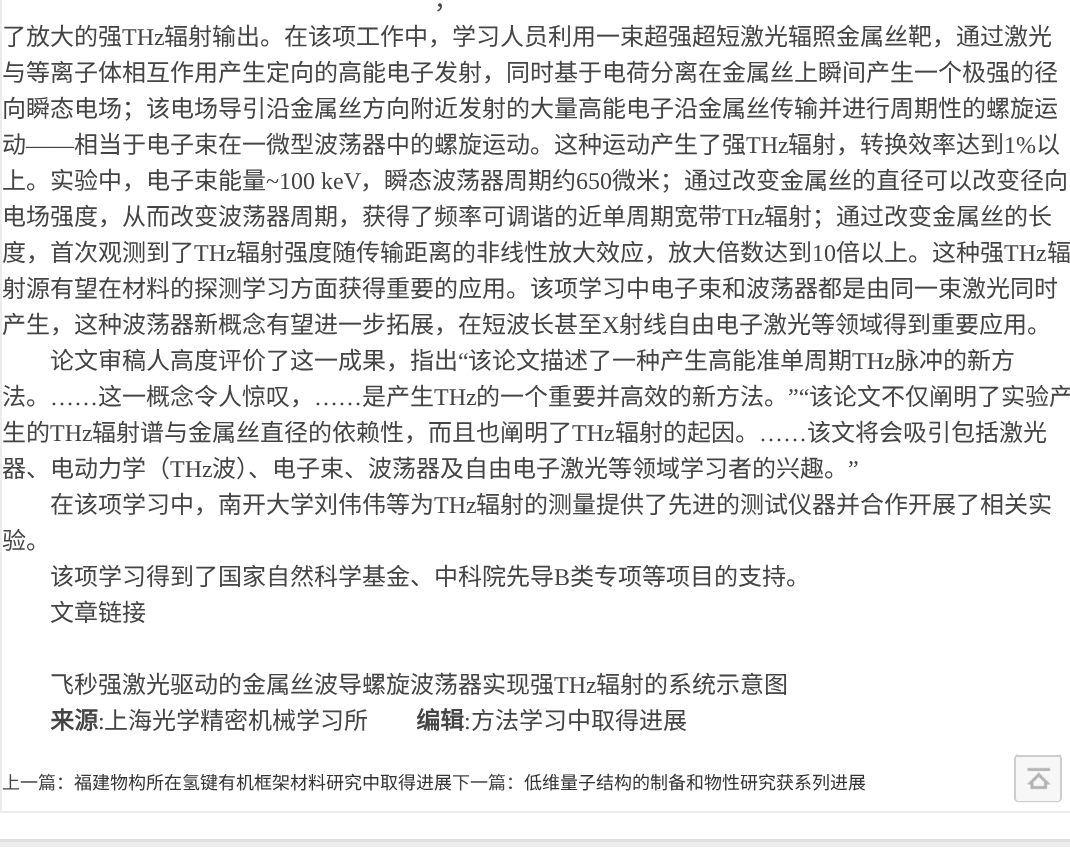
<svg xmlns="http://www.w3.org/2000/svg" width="1070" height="847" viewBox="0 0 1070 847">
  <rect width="100%" height="100%" fill="#ffffff"/>
  <rect x="1" y="-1" width="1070" height="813" fill="none" stroke="#ececec" stroke-width="2"/>
  <text x="434" y="9" font-family="Noto Sans CJK SC" font-size="24" fill="#444444">，</text>
  <text x="2" y="45" font-family="Noto Sans CJK SC" font-size="24" fill="#444444">了放大的强</text>
  <text x="122" y="45" font-family="Liberation Serif" font-size="24" fill="#444444">THz</text>
  <text x="164" y="45" font-family="Noto Sans CJK SC" font-size="24" fill="#444444">辐射输出。在该项工作中，学习人员利用一束超强超短激光辐照金属丝靶，通过激光</text>
  <text x="2" y="81" font-family="Noto Sans CJK SC" font-size="24" fill="#444444">与等离子体相互作用产生定向的高能电子发射，同时基于电荷分离在金属丝上瞬间产生一个极强的径</text>
  <text x="2" y="117" font-family="Noto Sans CJK SC" font-size="24" fill="#444444">向瞬态电场；该电场导引沿金属丝方向附近发射的大量高能电子沿金属丝传输并进行周期性的螺旋运</text>
  <text x="2" y="153" font-family="Noto Sans CJK SC" font-size="24" fill="#444444">动</text>
  <text x="26" y="153" font-family="Liberation Serif" font-size="24" fill="#444444">——</text>
  <text x="74" y="153" font-family="Noto Sans CJK SC" font-size="24" fill="#444444">相当于电子束在一微型波荡器中的螺旋运动。这种运动产生了强</text>
  <text x="746" y="153" font-family="Liberation Serif" font-size="24" fill="#444444">THz</text>
  <text x="788" y="153" font-family="Noto Sans CJK SC" font-size="24" fill="#444444">辐射，转换效率达到</text>
  <text x="1004" y="153" font-family="Liberation Serif" font-size="24" fill="#444444">1%</text>
  <text x="1036" y="153" font-family="Noto Sans CJK SC" font-size="24" fill="#444444">以</text>
  <text x="2" y="189" font-family="Noto Sans CJK SC" font-size="24" fill="#444444">上。实验中，电子束能量</text>
  <text x="266" y="189" font-family="Liberation Serif" font-size="24" fill="#444444">~100 keV</text>
  <text x="360" y="189" font-family="Noto Sans CJK SC" font-size="24" fill="#444444">，瞬态波荡器周期约</text>
  <text x="576" y="189" font-family="Liberation Serif" font-size="24" fill="#444444">650</text>
  <text x="612" y="189" font-family="Noto Sans CJK SC" font-size="24" fill="#444444">微米；通过改变金属丝的直径可以改变径向</text>
  <text x="2" y="225" font-family="Noto Sans CJK SC" font-size="24" fill="#444444">电场强度，从而改变波荡器周期，获得了频率可调谐的近单周期宽带</text>
  <text x="722" y="225" font-family="Liberation Serif" font-size="24" fill="#444444">THz</text>
  <text x="764" y="225" font-family="Noto Sans CJK SC" font-size="24" fill="#444444">辐射；通过改变金属丝的长</text>
  <text x="2" y="261" font-family="Noto Sans CJK SC" font-size="24" fill="#444444">度，首次观测到了</text>
  <text x="194" y="261" font-family="Liberation Serif" font-size="24" fill="#444444">THz</text>
  <text x="236" y="261" font-family="Noto Sans CJK SC" font-size="24" fill="#444444">辐射强度随传输距离的非线性放大效应，放大倍数达到</text>
  <text x="812" y="261" font-family="Liberation Serif" font-size="24" fill="#444444">10</text>
  <text x="836" y="261" font-family="Noto Sans CJK SC" font-size="24" fill="#444444">倍以上。这种强</text>
  <text x="1004" y="261" font-family="Liberation Serif" font-size="24" fill="#444444">THz</text>
  <text x="1047" y="261" font-family="Noto Sans CJK SC" font-size="24" fill="#444444">辐</text>
  <text x="2" y="297" font-family="Noto Sans CJK SC" font-size="24" fill="#444444">射源有望在材料的探测学习方面获得重要的应用。该项学习中电子束和波荡器都是由同一束激光同时</text>
  <text x="2" y="333" font-family="Noto Sans CJK SC" font-size="24" fill="#444444">产生，这种波荡器新概念有望进一步拓展，在短波长甚至</text>
  <text x="602" y="333" font-family="Liberation Serif" font-size="24" fill="#444444">X</text>
  <text x="619" y="333" font-family="Noto Sans CJK SC" font-size="24" fill="#444444">射线自由电子激光等领域得到重要应用。</text>
  <text x="50" y="369" font-family="Noto Sans CJK SC" font-size="24" fill="#444444">论文审稿人高度评价了这一成果，指出</text>
  <text x="458" y="369" font-family="Liberation Serif" font-size="24" fill="#444444">“</text>
  <text x="468" y="369" font-family="Noto Sans CJK SC" font-size="24" fill="#444444">该论文描述了一种产生高能准单周期</text>
  <text x="852" y="369" font-family="Liberation Serif" font-size="24" fill="#444444">THz</text>
  <text x="895" y="369" font-family="Noto Sans CJK SC" font-size="24" fill="#444444">脉冲的新方</text>
  <text x="2" y="405" font-family="Noto Sans CJK SC" font-size="24" fill="#444444">法。</text>
  <text x="98" y="405" font-family="Noto Sans CJK SC" font-size="24" fill="#444444">这一概念令人惊叹，</text>
  <text x="362" y="405" font-family="Noto Sans CJK SC" font-size="24" fill="#444444">是产生</text>
  <text x="434" y="405" font-family="Liberation Serif" font-size="24" fill="#444444">THz</text>
  <text x="476" y="405" font-family="Noto Sans CJK SC" font-size="24" fill="#444444">的一个重要并高效的新方法。</text>
  <text x="788" y="405" font-family="Liberation Serif" font-size="24" fill="#444444">”“</text>
  <text x="809" y="405" font-family="Noto Sans CJK SC" font-size="24" fill="#444444">该论文不仅阐明了实验产</text>
  <text x="50" y="405" font-family="Liberation Serif" font-size="24" fill="#444444">……</text>
  <text x="314" y="405" font-family="Liberation Serif" font-size="24" fill="#444444">……</text>
  <text x="2" y="441" font-family="Noto Sans CJK SC" font-size="24" fill="#444444">生的</text>
  <text x="50" y="441" font-family="Liberation Serif" font-size="24" fill="#444444">THz</text>
  <text x="92" y="441" font-family="Noto Sans CJK SC" font-size="24" fill="#444444">辐射谱与金属丝直径的依赖性，而且也阐明了</text>
  <text x="572" y="441" font-family="Liberation Serif" font-size="24" fill="#444444">THz</text>
  <text x="615" y="441" font-family="Noto Sans CJK SC" font-size="24" fill="#444444">辐射的起因。</text>
  <text x="759" y="441" font-family="Liberation Serif" font-size="24" fill="#444444">……</text>
  <text x="807" y="441" font-family="Noto Sans CJK SC" font-size="24" fill="#444444">该文将会吸引包括激光</text>
  <text x="2" y="477" font-family="Noto Sans CJK SC" font-size="24" fill="#444444">器、电动力学（</text>
  <text x="170" y="477" font-family="Liberation Serif" font-size="24" fill="#444444">THz</text>
  <text x="212" y="477" font-family="Noto Sans CJK SC" font-size="24" fill="#444444">波）、电子束、波荡器及自由电子激光等领域学习者的兴趣。</text>
  <text x="848" y="477" font-family="Liberation Serif" font-size="24" fill="#444444">”</text>
  <text x="50" y="513" font-family="Noto Sans CJK SC" font-size="24" fill="#444444">在该项学习中，南开大学刘伟伟等为</text>
  <text x="434" y="513" font-family="Liberation Serif" font-size="24" fill="#444444">THz</text>
  <text x="476" y="513" font-family="Noto Sans CJK SC" font-size="24" fill="#444444">辐射的测量提供了先进的测试仪器并合作开展了相关实</text>
  <text x="2" y="549" font-family="Noto Sans CJK SC" font-size="24" fill="#444444">验。</text>
  <text x="50" y="585" font-family="Noto Sans CJK SC" font-size="24" fill="#444444">该项学习得到了国家自然科学基金、中科院先导</text>
  <text x="554" y="585" font-family="Liberation Serif" font-size="24" fill="#444444">B</text>
  <text x="570" y="585" font-family="Noto Sans CJK SC" font-size="24" fill="#444444">类专项等项目的支持。</text>
  <text x="50" y="621" font-family="Noto Sans CJK SC" font-size="24" fill="#444444">文章链接</text>
  <text x="50" y="693" font-family="Noto Sans CJK SC" font-size="24" fill="#444444">飞秒强激光驱动的金属丝波导螺旋波荡器实现强</text>
  <text x="554" y="693" font-family="Liberation Serif" font-size="24" fill="#444444">THz</text>
  <text x="596" y="693" font-family="Noto Sans CJK SC" font-size="24" fill="#444444">辐射的系统示意图</text>
  <text x="50" y="729" font-family="Noto Sans CJK SC" font-size="24" font-weight="bold" fill="#444444">来源</text>
  <text x="98" y="729" font-family="Liberation Serif" font-size="24" fill="#444444">:</text>
  <text x="104" y="729" font-family="Noto Sans CJK SC" font-size="24" fill="#444444">上海光学精密机械学习所</text>
  <text x="416" y="729" font-family="Noto Sans CJK SC" font-size="24" font-weight="bold" fill="#444444">编辑</text>
  <text x="464" y="729" font-family="Liberation Serif" font-size="24" fill="#444444">:</text>
  <text x="471" y="729" font-family="Noto Sans CJK SC" font-size="24" fill="#444444">方法学习中取得进展</text>
  <text x="2" y="789" font-family="Noto Sans CJK SC" font-size="18" fill="#444444">上一篇：</text>
  <text x="74" y="789" font-family="Noto Sans CJK SC" font-size="18" fill="#333333">福建物构所在氢键有机框架材料研究中取得进展</text>
  <text x="452" y="789" font-family="Noto Sans CJK SC" font-size="18" fill="#444444">下一篇：</text>
  <text x="524" y="789" font-family="Noto Sans CJK SC" font-size="18" fill="#333333">低维量子结构的制备和物性研究获系列进展</text>
  <rect x="1014" y="755" width="48" height="48" rx="5" fill="#f7f7f7"/>
  <path d="M1018 754H1058C1060 754 1062 757 1062 759V798C1062 800 1060 802 1058 802H1018C1016 802 1014 800 1014 798V759C1014 757 1016 754 1018 754ZM1018 754H1058C1059 754 1060 757 1060 759V798C1060 800 1059 801 1058 801H1018C1017 801 1016 800 1016 798V759C1016 757 1017 754 1018 754Z" fill="#cdcdcd" fill-rule="evenodd"/>
  <image x="1027" y="767" width="24" height="23" href="img1.png"/>
  <rect x="1016" y="755" width="45" height="2" fill="#cdcdcd"/>
  <rect x="0" y="842" width="1070" height="5" fill="#ececec"/>
  <rect x="0" y="839" width="1070" height="3" fill="#dfdfdf"/>
</svg>
